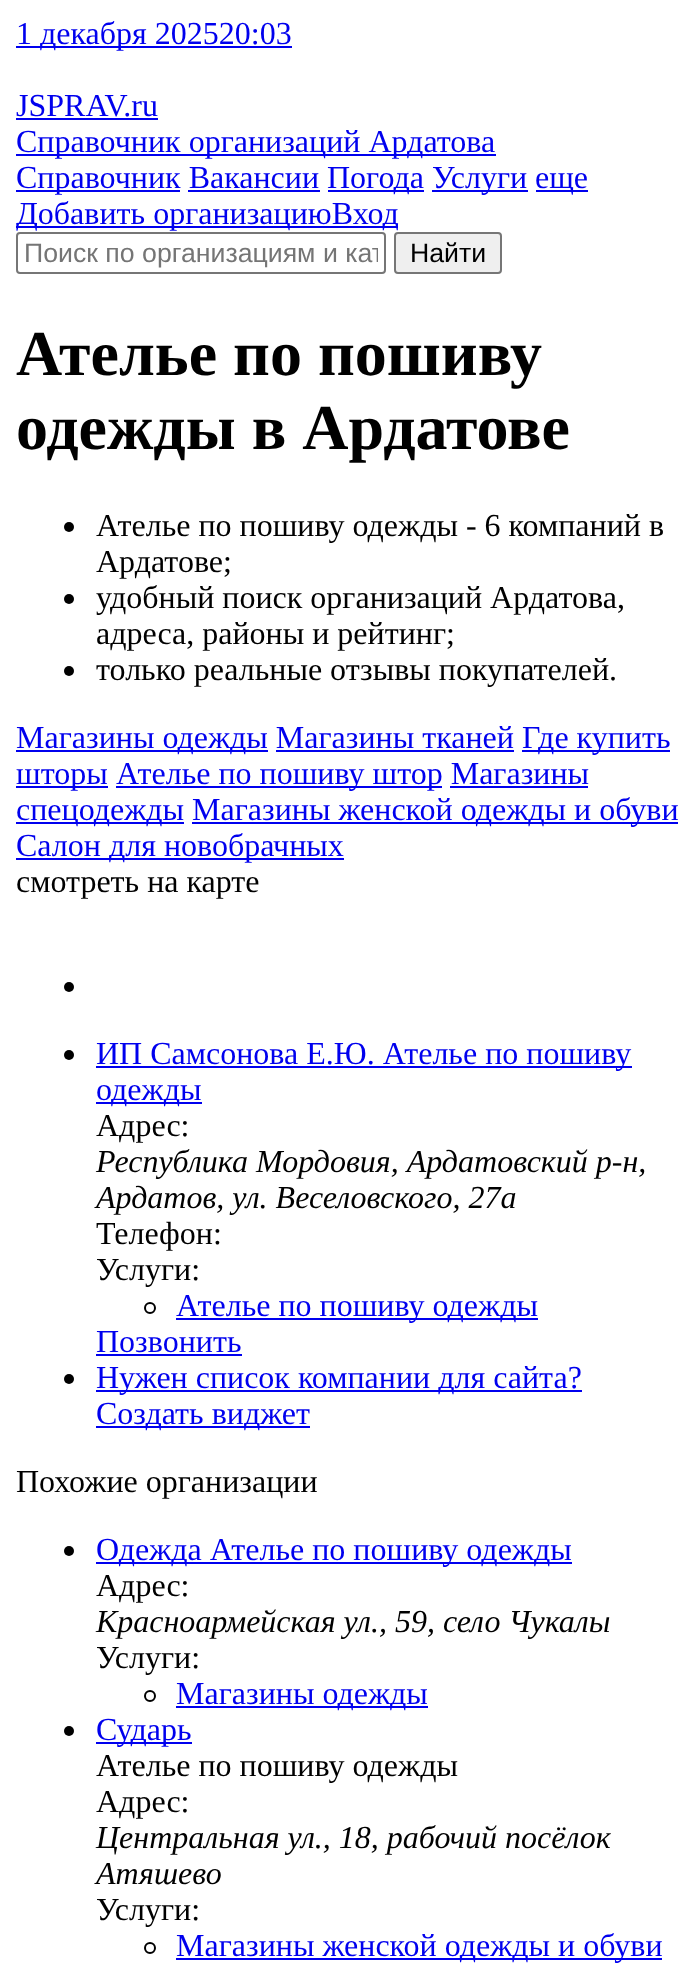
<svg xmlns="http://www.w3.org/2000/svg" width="700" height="1973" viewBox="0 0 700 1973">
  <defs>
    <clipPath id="clip1"><rect x="24" y="238" width="354" height="30"/></clipPath>
  </defs>
  <rect width="100%" height="100%" fill="#ffffff"/>
  <rect x="16" y="46" width="276" height="2" fill="#0000ee"/>
  <text x="16" y="44" font-family="Liberation Serif" font-size="32" fill="#0000ee">1 декабря 202520:03</text>
  <text x="16" y="116" font-family="Liberation Serif" font-size="32" fill="#0000ee">JSPRAV.ru</text>
  <rect x="16" y="118" width="142" height="2" fill="#0000ee"/>
  <rect x="16" y="154" width="480" height="2" fill="#0000ee"/>
  <text x="16" y="152" font-family="Liberation Serif" font-size="32" fill="#0000ee">Справочник организаций Ардатова</text>
  <rect x="16" y="190" width="164" height="2" fill="#0000ee"/>
  <text x="16" y="188" font-family="Liberation Serif" font-size="32" fill="#0000ee">Справочник Вакансии</text>
  <rect x="328" y="190" width="96" height="2" fill="#0000ee"/>
  <text x="327" y="188" font-family="Liberation Serif" font-size="32" fill="#0000ee">Погода</text>
  <rect x="432" y="190" width="96" height="2" fill="#0000ee"/>
  <text x="432" y="188" font-family="Liberation Serif" font-size="32" fill="#0000ee">Услуги</text>
  <rect x="536" y="190" width="52" height="2" fill="#0000ee"/>
  <text x="535" y="188" font-family="Liberation Serif" font-size="32" fill="#0000ee">еще</text>
  <rect x="188" y="190" width="132" height="2" fill="#0000ee"/>
  <rect x="16" y="226" width="382" height="2" fill="#0000ee"/>
  <text x="16" y="224" font-family="Liberation Serif" font-size="32" fill="#0000ee">Добавить организациюВход</text>
  <rect x="17" y="233" width="368" height="40" rx="3" fill="none" stroke="#767676" stroke-width="2"/>
  <g clip-path="url(#clip1)">
    <text x="24" y="262" font-family="Liberation Sans" font-size="26.7" fill="#757575">Поиск по организациям и кат</text>
  </g>
  <rect x="395" y="233" width="106" height="40" rx="3" fill="#efefef" stroke="#767676" stroke-width="2"/>
  <text x="410" y="262" font-family="Liberation Sans" font-size="26.7" fill="#000000">Найти</text>
  <text x="16" y="375" font-family="Liberation Serif" font-size="64" font-weight="bold" fill="#000000">Ателье по пошиву</text>
  <text x="16" y="449" font-family="Liberation Serif" font-size="64" font-weight="bold" fill="#000000">одежды в Ардатове</text>
  <circle cx="69" cy="527" r="5" fill="#000000"/>
  <text x="96" y="536" font-family="Liberation Serif" font-size="32" fill="#000000">Ателье по пошиву одежды - 6 компаний в</text>
  <text x="96" y="572" font-family="Liberation Serif" font-size="32" fill="#000000">Ардатове;</text>
  <circle cx="69" cy="599" r="5" fill="#000000"/>
  <text x="96" y="608" font-family="Liberation Serif" font-size="32" fill="#000000">удобный поиск организаций Ардатова,</text>
  <text x="96" y="644" font-family="Liberation Serif" font-size="32" fill="#000000">адреса, районы и рейтинг;</text>
  <circle cx="69" cy="671" r="5" fill="#000000"/>
  <text x="96" y="680" font-family="Liberation Serif" font-size="32" fill="#000000">только реальные отзывы покупателей.</text>
  <rect x="16" y="750" width="252" height="2" fill="#0000ee"/>
  <text x="16" y="748" font-family="Liberation Serif" font-size="32" fill="#0000ee">Магазины одежды Магазины тканей</text>
  <rect x="522" y="750" width="148" height="2" fill="#0000ee"/>
  <text x="522" y="748" font-family="Liberation Serif" font-size="32" fill="#0000ee">Где купить</text>
  <rect x="276" y="750" width="238" height="2" fill="#0000ee"/>
  <rect x="16" y="786" width="92" height="2" fill="#0000ee"/>
  <text x="16" y="784" font-family="Liberation Serif" font-size="32" fill="#0000ee">шторы</text>
  <rect x="116" y="786" width="326" height="2" fill="#0000ee"/>
  <text x="116" y="784" font-family="Liberation Serif" font-size="32" fill="#0000ee">Ателье по пошиву штор Магазины</text>
  <rect x="16" y="822" width="168" height="2" fill="#0000ee"/>
  <text x="16" y="820" font-family="Liberation Serif" font-size="32" fill="#0000ee">спецодежды</text>
  <rect x="450" y="786" width="138" height="2" fill="#0000ee"/>
  <rect x="192" y="822" width="486" height="2" fill="#0000ee"/>
  <text x="192" y="820" font-family="Liberation Serif" font-size="32" fill="#0000ee">Магазины женской одежды и обуви</text>
  <rect x="16" y="858" width="328" height="2" fill="#0000ee"/>
  <text x="16" y="856" font-family="Liberation Serif" font-size="32" fill="#0000ee">Салон для новобрачных</text>
  <text x="16" y="892" font-family="Liberation Serif" font-size="32" fill="#000000">смотреть на карте</text>
  <circle cx="69" cy="987" r="5" fill="#000000"/>
  <circle cx="69" cy="1055" r="5" fill="#000000"/>
  <rect x="96" y="1066" width="536" height="2" fill="#0000ee"/>
  <text x="96" y="1064" font-family="Liberation Serif" font-size="32" fill="#0000ee">ИП Самсонова Е.Ю. Ателье по пошиву</text>
  <rect x="96" y="1102" width="106" height="2" fill="#0000ee"/>
  <text x="96" y="1100" font-family="Liberation Serif" font-size="32" fill="#0000ee">одежды</text>
  <text x="96" y="1136" font-family="Liberation Serif" font-size="32" fill="#000000">Адрес:</text>
  <text x="96" y="1172" font-family="Liberation Serif" font-size="32" font-style="italic" fill="#000000">Республика Мордовия, Ардатовский р-н,</text>
  <text x="96" y="1208" font-family="Liberation Serif" font-size="32" font-style="italic" fill="#000000">Ардатов, ул. Веселовского, 27а</text>
  <text x="96" y="1244" font-family="Liberation Serif" font-size="32" fill="#000000">Телефон:</text>
  <text x="96" y="1280" font-family="Liberation Serif" font-size="32" fill="#000000">Услуги:</text>
  <circle cx="150" cy="1308" r="5" fill="none" stroke="#000000" stroke-width="2"/>
  <rect x="176" y="1318" width="362" height="2" fill="#0000ee"/>
  <text x="176" y="1316" font-family="Liberation Serif" font-size="32" fill="#0000ee">Ателье по пошиву одежды</text>
  <text x="96" y="1352" font-family="Liberation Serif" font-size="32" fill="#0000ee">Позвонить</text>
  <rect x="96" y="1354" width="146" height="2" fill="#0000ee"/>
  <circle cx="69" cy="1379" r="5" fill="#000000"/>
  <rect x="96" y="1390" width="486" height="2" fill="#0000ee"/>
  <text x="96" y="1388" font-family="Liberation Serif" font-size="32" fill="#0000ee">Нужен список компании для сайта?</text>
  <rect x="96" y="1426" width="214" height="2" fill="#0000ee"/>
  <text x="96" y="1424" font-family="Liberation Serif" font-size="32" fill="#0000ee">Создать виджет</text>
  <text x="16" y="1492" font-family="Liberation Serif" font-size="32" fill="#000000">Похожие организации</text>
  <circle cx="69" cy="1551" r="5" fill="#000000"/>
  <rect x="96" y="1562" width="476" height="2" fill="#0000ee"/>
  <text x="96" y="1560" font-family="Liberation Serif" font-size="32" fill="#0000ee">Одежда Ателье по пошиву одежды</text>
  <text x="96" y="1596" font-family="Liberation Serif" font-size="32" fill="#000000">Адрес:</text>
  <text x="96" y="1632" font-family="Liberation Serif" font-size="32" font-style="italic" fill="#000000">Красноармейская ул., 59, село Чукалы</text>
  <text x="96" y="1668" font-family="Liberation Serif" font-size="32" fill="#000000">Услуги:</text>
  <circle cx="150" cy="1696" r="5" fill="none" stroke="#000000" stroke-width="2"/>
  <rect x="176" y="1706" width="252" height="2" fill="#0000ee"/>
  <text x="176" y="1704" font-family="Liberation Serif" font-size="32" fill="#0000ee">Магазины одежды</text>
  <circle cx="69" cy="1731" r="5" fill="#000000"/>
  <rect x="96" y="1742" width="96" height="2" fill="#0000ee"/>
  <text x="96" y="1740" font-family="Liberation Serif" font-size="32" fill="#0000ee">Сударь</text>
  <text x="96" y="1776" font-family="Liberation Serif" font-size="32" fill="#000000">Ателье по пошиву одежды</text>
  <text x="96" y="1812" font-family="Liberation Serif" font-size="32" fill="#000000">Адрес:</text>
  <text x="96" y="1848" font-family="Liberation Serif" font-size="32" font-style="italic" fill="#000000">Центральная ул., 18, рабочий посёлок</text>
  <text x="96" y="1884" font-family="Liberation Serif" font-size="32" font-style="italic" fill="#000000">Атяшево</text>
  <text x="96" y="1920" font-family="Liberation Serif" font-size="32" fill="#000000">Услуги:</text>
  <circle cx="150" cy="1948" r="5" fill="none" stroke="#000000" stroke-width="2"/>
  <rect x="176" y="1958" width="486" height="2" fill="#0000ee"/>
  <text x="176" y="1956" font-family="Liberation Serif" font-size="32" fill="#0000ee">Магазины женской одежды и обуви</text>
</svg>
